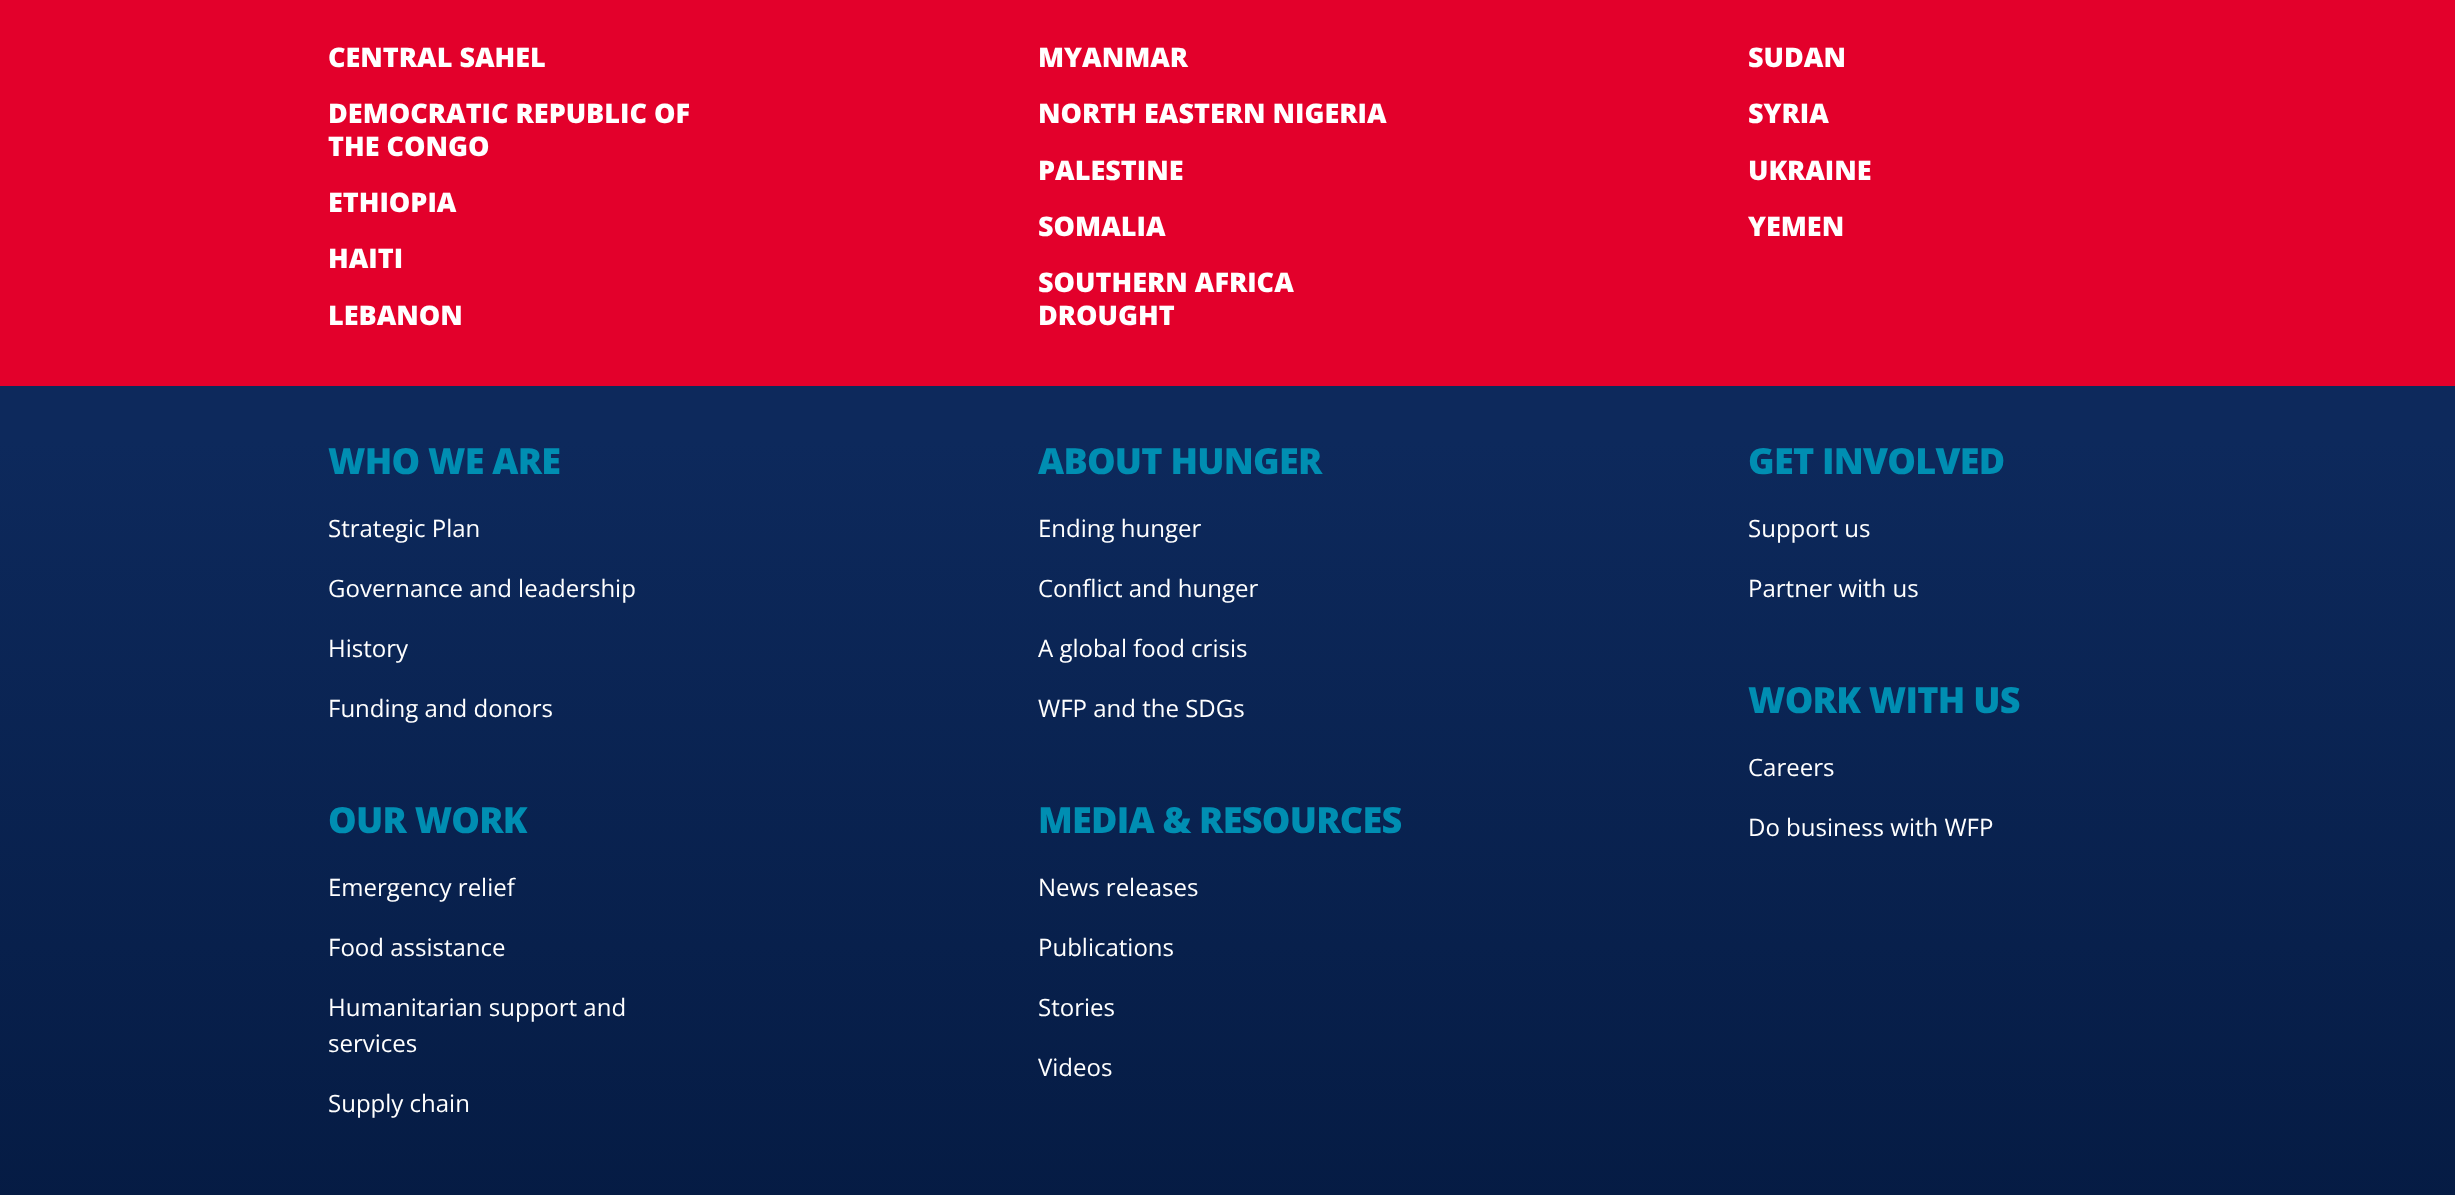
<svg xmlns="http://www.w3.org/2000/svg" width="2455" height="1195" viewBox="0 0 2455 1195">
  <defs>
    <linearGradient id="g1" gradientUnits="userSpaceOnUse" x1="1228" y1="-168" x2="1228" y2="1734"><stop offset="0.32" stop-color="#0d295c"/><stop offset="1" stop-color="#001233"/></linearGradient>
  </defs>
  <rect width="100%" height="100%" fill="#ffffff"/>
  <rect x="0" y="386" width="2455" height="809" fill="url(#g1)"/>
  <rect x="0" y="0" width="2455" height="386" fill="#e3002b"/>
  <text x="328" y="67" font-family="Open Sans" font-size="27" font-weight="800" fill="#ffffff">CENTRAL SAHEL</text>
  <text x="1038" y="67" font-family="Open Sans" font-size="27" font-weight="800" fill="#ffffff">MYANMAR</text>
  <text x="1748" y="67" font-family="Open Sans" font-size="27" font-weight="800" fill="#ffffff">SUDAN</text>
  <text x="328" y="123" font-family="Open Sans" font-size="27" font-weight="800" fill="#ffffff">DEMOCRATIC REPUBLIC OF</text>
  <text x="328" y="156" font-family="Open Sans" font-size="27" font-weight="800" fill="#ffffff">THE CONGO</text>
  <text x="1038" y="123" font-family="Open Sans" font-size="27" font-weight="800" fill="#ffffff">NORTH EASTERN NIGERIA</text>
  <text x="1748" y="123" font-family="Open Sans" font-size="27" font-weight="800" fill="#ffffff">SYRIA</text>
  <text x="1038" y="180" font-family="Open Sans" font-size="27" font-weight="800" fill="#ffffff">PALESTINE</text>
  <text x="1748" y="180" font-family="Open Sans" font-size="27" font-weight="800" fill="#ffffff">UKRAINE</text>
  <text x="328" y="212" font-family="Open Sans" font-size="27" font-weight="800" fill="#ffffff">ETHIOPIA</text>
  <text x="1038" y="236" font-family="Open Sans" font-size="27" font-weight="800" fill="#ffffff">SOMALIA</text>
  <text x="1748" y="236" font-family="Open Sans" font-size="27" font-weight="800" fill="#ffffff">YEMEN</text>
  <text x="328" y="268" font-family="Open Sans" font-size="27" font-weight="800" fill="#ffffff">HAITI</text>
  <text x="328" y="325" font-family="Open Sans" font-size="27" font-weight="800" fill="#ffffff">LEBANON</text>
  <text x="1038" y="292" font-family="Open Sans" font-size="27" font-weight="800" fill="#ffffff">SOUTHERN AFRICA</text>
  <text x="1038" y="325" font-family="Open Sans" font-size="27" font-weight="800" fill="#ffffff">DROUGHT</text>
  <text x="328" y="474" font-family="Open Sans" font-size="36" font-weight="800" letter-spacing="-0.75" fill="#008eb2">WHO WE ARE</text>
  <text x="328" y="537" font-family="Open Sans" font-size="24" fill="#ffffff">Strategic Plan</text>
  <text x="328" y="597" font-family="Open Sans" font-size="24" fill="#ffffff">Governance and leadership</text>
  <text x="328" y="657" font-family="Open Sans" font-size="24" fill="#ffffff">History</text>
  <text x="328" y="717" font-family="Open Sans" font-size="24" fill="#ffffff">Funding and donors</text>
  <text x="1038" y="474" font-family="Open Sans" font-size="36" font-weight="800" letter-spacing="-0.75" fill="#008eb2">ABOUT HUNGER</text>
  <text x="1038" y="537" font-family="Open Sans" font-size="24" fill="#ffffff">Ending hunger</text>
  <text x="1038" y="597" font-family="Open Sans" font-size="24" fill="#ffffff">Conflict and hunger</text>
  <text x="1038" y="657" font-family="Open Sans" font-size="24" fill="#ffffff">A global food crisis</text>
  <text x="1038" y="717" font-family="Open Sans" font-size="24" fill="#ffffff">WFP and the SDGs</text>
  <text x="1748" y="474" font-family="Open Sans" font-size="36" font-weight="800" letter-spacing="-0.75" fill="#008eb2">GET INVOLVED</text>
  <text x="1748" y="537" font-family="Open Sans" font-size="24" fill="#ffffff">Support us</text>
  <text x="1748" y="597" font-family="Open Sans" font-size="24" fill="#ffffff">Partner with us</text>
  <text x="1748" y="713" font-family="Open Sans" font-size="36" font-weight="800" letter-spacing="-0.75" fill="#008eb2">WORK WITH US</text>
  <text x="1748" y="776" font-family="Open Sans" font-size="24" fill="#ffffff">Careers</text>
  <text x="1748" y="836" font-family="Open Sans" font-size="24" fill="#ffffff">Do business with WFP</text>
  <text x="328" y="833" font-family="Open Sans" font-size="36" font-weight="800" letter-spacing="-0.75" fill="#008eb2">OUR WORK</text>
  <text x="328" y="896" font-family="Open Sans" font-size="24" fill="#ffffff">Emergency relief</text>
  <text x="328" y="956" font-family="Open Sans" font-size="24" fill="#ffffff">Food assistance</text>
  <text x="328" y="1016" font-family="Open Sans" font-size="24" fill="#ffffff">Humanitarian support and</text>
  <text x="328" y="1052" font-family="Open Sans" font-size="24" fill="#ffffff">services</text>
  <text x="328" y="1112" font-family="Open Sans" font-size="24" fill="#ffffff">Supply chain</text>
  <text x="1038" y="833" font-family="Open Sans" font-size="36" font-weight="800" letter-spacing="-0.75" fill="#008eb2">MEDIA &amp; RESOURCES</text>
  <text x="1038" y="896" font-family="Open Sans" font-size="24" fill="#ffffff">News releases</text>
  <text x="1038" y="956" font-family="Open Sans" font-size="24" fill="#ffffff">Publications</text>
  <text x="1038" y="1016" font-family="Open Sans" font-size="24" fill="#ffffff">Stories</text>
  <text x="1038" y="1076" font-family="Open Sans" font-size="24" fill="#ffffff">Videos</text>
</svg>
